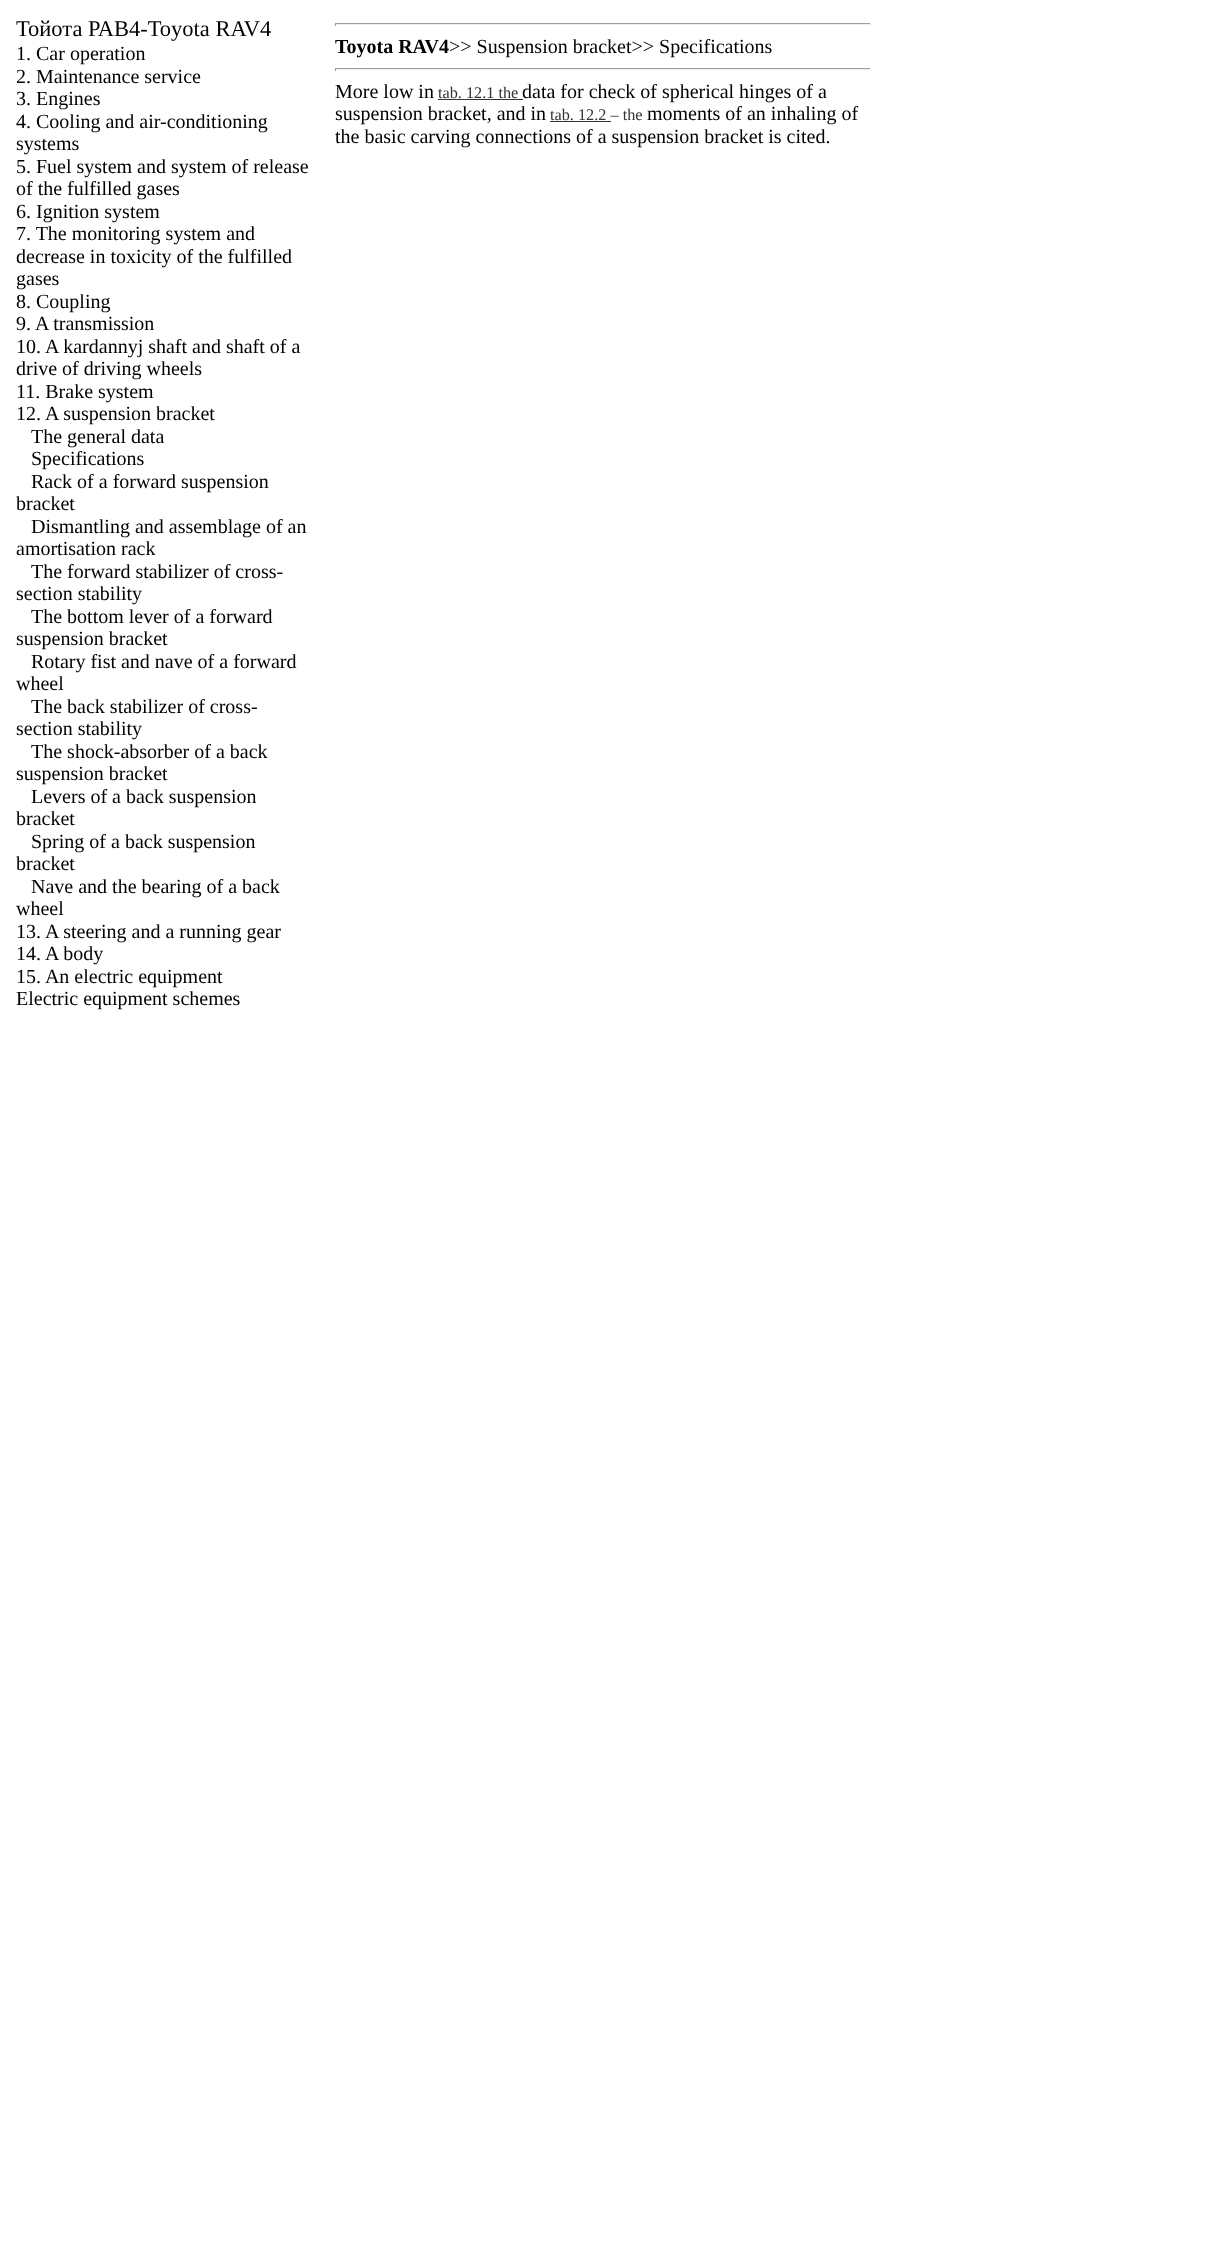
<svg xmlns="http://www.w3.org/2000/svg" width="1206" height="2250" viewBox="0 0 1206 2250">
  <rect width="100%" height="100%" fill="#ffffff"/>
  <text x="16" y="36" font-family="Liberation Serif" font-size="22.5" fill="#000000">Тойота РАВ4-Toyota RAV4</text>
  <text x="16" y="60" font-family="Liberation Serif" font-size="20" fill="#000000">1. Car operation</text>
  <text x="16" y="83" font-family="Liberation Serif" font-size="20" fill="#000000">2. Maintenance service</text>
  <text x="16" y="105" font-family="Liberation Serif" font-size="20" fill="#000000">3. Engines</text>
  <text x="16" y="128" font-family="Liberation Serif" font-size="20" fill="#000000">4. Cooling and air-conditioning</text>
  <text x="16" y="150" font-family="Liberation Serif" font-size="20" fill="#000000">systems</text>
  <text x="16" y="173" font-family="Liberation Serif" font-size="20" fill="#000000">5. Fuel system and system of release</text>
  <text x="16" y="195" font-family="Liberation Serif" font-size="20" fill="#000000">of the fulfilled gases</text>
  <text x="16" y="218" font-family="Liberation Serif" font-size="20" fill="#000000">6. Ignition system</text>
  <text x="16" y="240" font-family="Liberation Serif" font-size="20" fill="#000000">7. The monitoring system and</text>
  <text x="16" y="263" font-family="Liberation Serif" font-size="20" fill="#000000">decrease in toxicity of the fulfilled</text>
  <text x="16" y="285" font-family="Liberation Serif" font-size="20" fill="#000000">gases</text>
  <text x="16" y="308" font-family="Liberation Serif" font-size="20" fill="#000000">8. Coupling</text>
  <text x="16" y="330" font-family="Liberation Serif" font-size="20" fill="#000000">9. A transmission</text>
  <text x="16" y="353" font-family="Liberation Serif" font-size="20" fill="#000000">10. A kardannyj shaft and shaft of a</text>
  <text x="16" y="375" font-family="Liberation Serif" font-size="20" fill="#000000">drive of driving wheels</text>
  <text x="16" y="398" font-family="Liberation Serif" font-size="20" fill="#000000">11. Brake system</text>
  <text x="16" y="420" font-family="Liberation Serif" font-size="20" fill="#000000">12. A suspension bracket</text>
  <text x="31" y="443" font-family="Liberation Serif" font-size="20" fill="#000000">The general data</text>
  <text x="31" y="465" font-family="Liberation Serif" font-size="20" fill="#000000">Specifications</text>
  <text x="31" y="488" font-family="Liberation Serif" font-size="20" fill="#000000">Rack of a forward suspension</text>
  <text x="16" y="510" font-family="Liberation Serif" font-size="20" fill="#000000">bracket</text>
  <text x="31" y="533" font-family="Liberation Serif" font-size="20" fill="#000000">Dismantling and assemblage of an</text>
  <text x="16" y="555" font-family="Liberation Serif" font-size="20" fill="#000000">amortisation rack</text>
  <text x="31" y="578" font-family="Liberation Serif" font-size="20" fill="#000000">The forward stabilizer of cross-</text>
  <text x="16" y="600" font-family="Liberation Serif" font-size="20" fill="#000000">section stability</text>
  <text x="31" y="623" font-family="Liberation Serif" font-size="20" fill="#000000">The bottom lever of a forward</text>
  <text x="16" y="645" font-family="Liberation Serif" font-size="20" fill="#000000">suspension bracket</text>
  <text x="31" y="668" font-family="Liberation Serif" font-size="20" fill="#000000">Rotary fist and nave of a forward</text>
  <text x="16" y="690" font-family="Liberation Serif" font-size="20" fill="#000000">wheel</text>
  <text x="31" y="713" font-family="Liberation Serif" font-size="20" fill="#000000">The back stabilizer of cross-</text>
  <text x="16" y="735" font-family="Liberation Serif" font-size="20" fill="#000000">section stability</text>
  <text x="31" y="758" font-family="Liberation Serif" font-size="20" fill="#000000">The shock-absorber of a back</text>
  <text x="16" y="780" font-family="Liberation Serif" font-size="20" fill="#000000">suspension bracket</text>
  <text x="31" y="803" font-family="Liberation Serif" font-size="20" fill="#000000">Levers of a back suspension</text>
  <text x="16" y="825" font-family="Liberation Serif" font-size="20" fill="#000000">bracket</text>
  <text x="31" y="848" font-family="Liberation Serif" font-size="20" fill="#000000">Spring of a back suspension</text>
  <text x="16" y="870" font-family="Liberation Serif" font-size="20" fill="#000000">bracket</text>
  <text x="31" y="893" font-family="Liberation Serif" font-size="20" fill="#000000">Nave and the bearing of a back</text>
  <text x="16" y="915" font-family="Liberation Serif" font-size="20" fill="#000000">wheel</text>
  <text x="16" y="938" font-family="Liberation Serif" font-size="20" fill="#000000">13. A steering and a running gear</text>
  <text x="16" y="960" font-family="Liberation Serif" font-size="20" fill="#000000">14. A body</text>
  <text x="16" y="983" font-family="Liberation Serif" font-size="20" fill="#000000">15. An electric equipment</text>
  <text x="16" y="1005" font-family="Liberation Serif" font-size="20" fill="#000000">Electric equipment schemes</text>
  <rect x="335" y="23" width="536" height="1" fill="#9f9f9f"/>
  <rect x="870" y="23" width="1" height="3" fill="#eeeeee"/>
  <rect x="335" y="24" width="536" height="1" fill="#eeeeee"/>
  <rect x="335" y="23" width="1" height="3" fill="#9f9f9f"/>
  <text x="335" y="53" font-family="Liberation Serif" font-size="20" font-weight="bold" fill="#000000">Toyota RAV4</text>
  <text x="449" y="53" font-family="Liberation Serif" font-size="20" fill="#000000">&gt;&gt; Suspension bracket&gt;&gt; Specifications</text>
  <rect x="335" y="68" width="536" height="1" fill="#9f9f9f"/>
  <rect x="870" y="68" width="1" height="3" fill="#eeeeee"/>
  <rect x="335" y="69" width="536" height="1" fill="#eeeeee"/>
  <rect x="335" y="68" width="1" height="3" fill="#9f9f9f"/>
  <text x="335" y="98" font-family="Liberation Serif" font-size="20" fill="#000000">More low in</text>
  <text x="438" y="98" font-family="Liberation Serif" font-size="16.25" fill="#333333">tab. 12.1 the</text>
  <rect x="438" y="99" width="85" height="1" fill="#333333"/>
  <text x="522" y="98" font-family="Liberation Serif" font-size="20" fill="#000000">data for check of spherical hinges of a</text>
  <text x="335" y="120" font-family="Liberation Serif" font-size="20" fill="#000000">suspension bracket, and in</text>
  <text x="550" y="120" font-family="Liberation Serif" font-size="16.25" fill="#333333">tab. 12.2 – the</text>
  <rect x="550" y="121" width="61" height="1" fill="#333333"/>
  <text x="647" y="120" font-family="Liberation Serif" font-size="20" fill="#000000">moments of an inhaling of</text>
  <text x="335" y="143" font-family="Liberation Serif" font-size="20" fill="#000000">the basic carving connections of a suspension bracket is cited.</text>
</svg>
